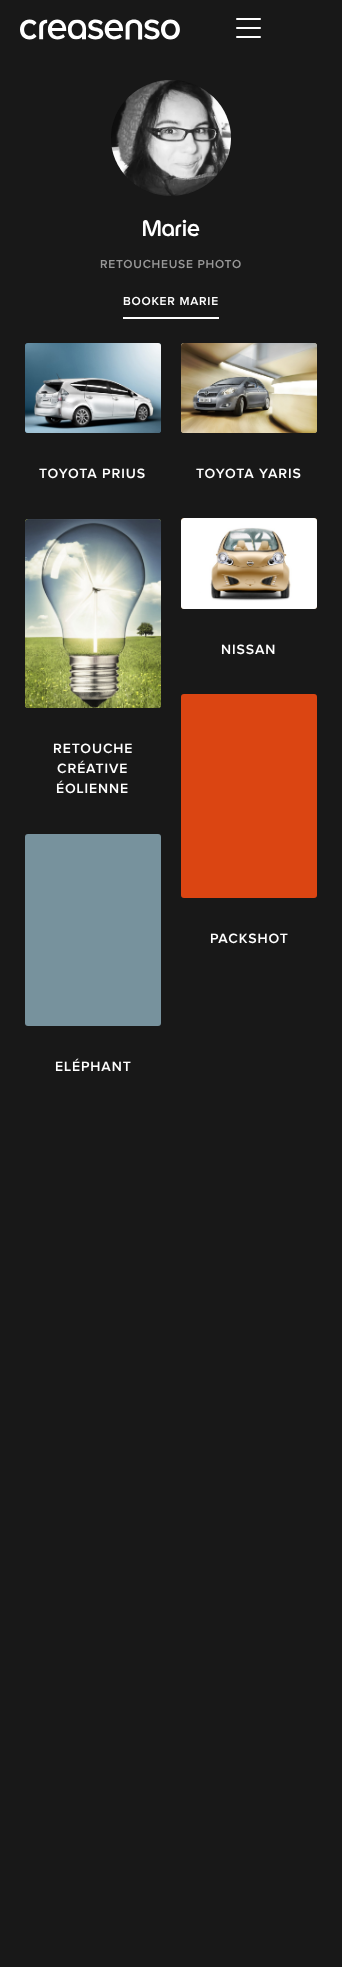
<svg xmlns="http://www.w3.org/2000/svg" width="342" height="1967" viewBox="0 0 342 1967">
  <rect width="100%" height="100%" fill="#181818"/>
  <image x="20" y="19" width="160" height="21" href="img1.png"/>
  <rect x="236" y="18" width="25" height="2" rx="1" fill="#ffffff"/>
  <rect x="236" y="27" width="25" height="2" rx="1" fill="#ffffff"/>
  <rect x="236" y="36" width="25" height="2" rx="1" fill="#ffffff"/>
  <image x="111" y="80" width="120" height="116" href="img2.png"/>
  <text x="142" y="236" font-family="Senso" font-size="24" fill="#ffffff">Marie</text>
  <text x="100" y="268" font-family="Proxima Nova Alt" font-size="12" font-weight="600" letter-spacing="0.75" fill="#989898">RETOUCHEUSE PHOTO</text>
  <text x="123" y="305" font-family="Proxima Nova Alt" font-size="12" font-weight="600" letter-spacing="0.75" fill="#ffffff">BOOKER MARIE</text>
  <rect x="123" y="317" width="96" height="2" fill="#ffffff"/>
  <rect x="25" y="343" width="136" height="90" rx="3" fill="#4f7b94"/>
  <image x="25" y="343" width="136" height="90" href="img3.png"/>
  <text x="39" y="478" font-family="Proxima Nova Alt" font-size="14" font-weight="600" letter-spacing="0.9" fill="#ffffff">TOYOTA PRIUS</text>
  <rect x="181" y="343" width="136" height="90" rx="3" fill="#dccda2"/>
  <image x="181" y="343" width="136" height="90" href="img4.png"/>
  <text x="196" y="478" font-family="Proxima Nova Alt" font-size="14" font-weight="600" letter-spacing="0.9" fill="#ffffff">TOYOTA YARIS</text>
  <rect x="181" y="518" width="136" height="91" rx="3" fill="#8f6227"/>
  <image x="181" y="518" width="136" height="91" href="img5.png"/>
  <text x="221" y="654" font-family="Proxima Nova Alt" font-size="14" font-weight="600" letter-spacing="0.9" fill="#ffffff">NISSAN</text>
  <rect x="25" y="519" width="136" height="189" rx="3" fill="#a3b056"/>
  <image x="25" y="519" width="136" height="189" href="img6.png"/>
  <text x="53" y="753" font-family="Proxima Nova Alt" font-size="14" font-weight="600" letter-spacing="0.9" fill="#ffffff">RETOUCHE</text>
  <text x="57" y="773" font-family="Proxima Nova Alt" font-size="14" font-weight="600" letter-spacing="0.9" fill="#ffffff">CRÉATIVE</text>
  <text x="56" y="793" font-family="Proxima Nova Alt" font-size="14" font-weight="600" letter-spacing="0.9" fill="#ffffff">ÉOLIENNE</text>
  <rect x="181" y="694" width="136" height="204" rx="3" fill="#db4512"/>
  <text x="210" y="943" font-family="Proxima Nova Alt" font-size="14" font-weight="600" letter-spacing="0.9" fill="#ffffff">PACKSHOT</text>
  <rect x="25" y="834" width="136" height="192" rx="3" fill="#77929d"/>
  <text x="55" y="1071" font-family="Proxima Nova Alt" font-size="14" font-weight="600" letter-spacing="0.9" fill="#ffffff">ELÉPHANT</text>
</svg>
